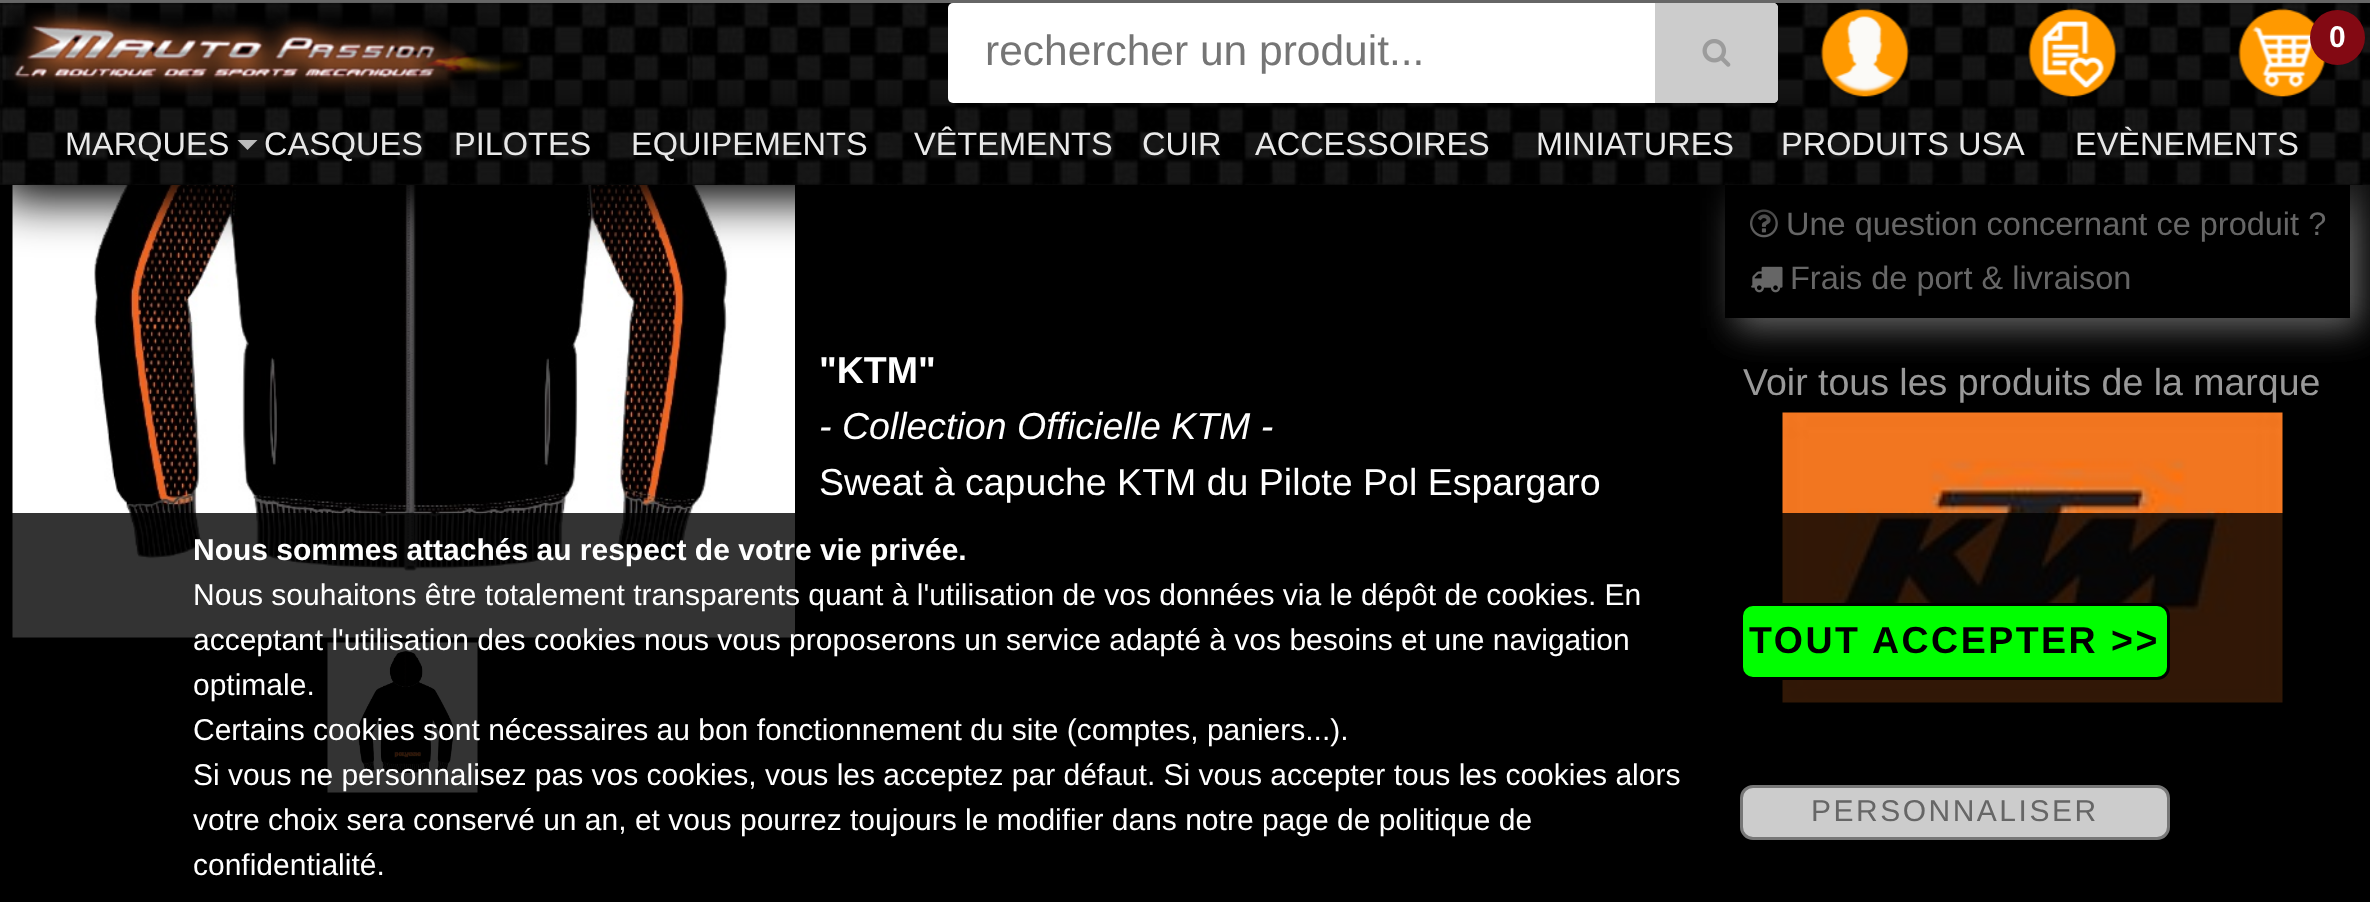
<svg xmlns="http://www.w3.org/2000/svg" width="2370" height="902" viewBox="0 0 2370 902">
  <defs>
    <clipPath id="clip1"><path d="M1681 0H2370V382H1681ZM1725-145H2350V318H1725Z" clip-rule="evenodd"/></clipPath>
    <filter id="blur1" x="-50%" y="-200%" width="200%" height="500%"><feGaussianBlur stdDeviation="17.5"/></filter>
    <filter id="blur2" x="-50%" y="-200%" width="200%" height="500%"><feGaussianBlur stdDeviation="25"/></filter>
    <clipPath id="clip2"><path d="M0 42H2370V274H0ZM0 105H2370V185H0Z" clip-rule="evenodd"/></clipPath>
  </defs>
  <rect width="100%" height="100%" fill="#000000"/>
  <image x="12" y="185" width="783" height="453" href="img7.png"/>
  <g clip-path="url(#clip1)">
    <rect x="1735" y="-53" width="625" height="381" fill="#666666" filter="url(#blur1)"/>
  </g>
  <image x="1750" y="209" width="28" height="29" href="img9.png"/>
  <rect x="0" y="0" width="2370" height="185" fill="#000000" fill-opacity="0.3" filter="url(#blur2)"/>
  <image x="0" y="3" width="2370" height="182" href="img1.png"/>
  <rect x="0" y="0" width="2370" height="3" fill="#666666"/>
  <image x="1751" y="266" width="32" height="27" href="img10.png"/>
  <g clip-path="url(#clip2)">
    <rect x="0" y="118" width="2370" height="80" fill="#000000" filter="url(#blur2)"/>
  </g>
  <image x="6" y="2" width="517" height="94" href="img2.png"/>
  <rect x="948" y="3" width="830" height="100" rx="5" fill="#ffffff"/>
  <text x="985" y="65" font-family="Liberation Sans" font-size="42.5" fill="#757575">rechercher un produit...</text>
  <path d="M1655 3H1773C1776 3 1778 5 1778 8V98C1778 101 1776 103 1773 103H1655Z" fill="#cccccc"/>
  <image x="1702" y="39" width="29" height="28" href="img3.png"/>
  <image x="1820" y="8" width="90" height="89" href="img4.png"/>
  <image x="2028" y="8" width="89" height="89" href="img5.png"/>
  <image x="2238" y="8" width="89" height="89" href="img6.png"/>
  <circle cx="2337.5" cy="37.5" r="27.5" fill="#830913"/>
  <text x="2329" y="47" font-family="Liberation Sans" font-size="30" font-weight="bold" fill="#ffffff">0</text>
  <text x="65" y="155" font-family="Liberation Sans" font-size="32.5" fill="#e9e9e9">MARQUES</text>
  <path d="M237.5 140H257.5L247.5 150Z" fill="#bbbbbb"/>
  <text x="264" y="155" font-family="Liberation Sans" font-size="32.5" fill="#e9e9e9">CASQUES</text>
  <text x="454" y="155" font-family="Liberation Sans" font-size="32.5" fill="#e9e9e9">PILOTES</text>
  <text x="631" y="155" font-family="Liberation Sans" font-size="32.5" fill="#e9e9e9">EQUIPEMENTS</text>
  <text x="914" y="155" font-family="Liberation Sans" font-size="32.5" fill="#e9e9e9">VÊTEMENTS</text>
  <text x="1142" y="155" font-family="Liberation Sans" font-size="32.5" fill="#e9e9e9">CUIR</text>
  <text x="1255" y="155" font-family="Liberation Sans" font-size="32.5" fill="#e9e9e9">ACCESSOIRES</text>
  <text x="1536" y="155" font-family="Liberation Sans" font-size="32.5" fill="#e9e9e9">MINIATURES</text>
  <text x="1781" y="155" font-family="Liberation Sans" font-size="32.5" fill="#e9e9e9">PRODUITS USA</text>
  <text x="2075" y="155" font-family="Liberation Sans" font-size="32.5" fill="#e9e9e9">EVÈNEMENTS</text>
  <image x="327" y="642" width="151" height="151" href="img8.png"/>
  <text x="1786" y="235" font-family="Liberation Sans" font-size="32.5" fill="#666666">Une question concernant ce produit ?</text>
  <text x="1790" y="289" font-family="Liberation Sans" font-size="32.5" fill="#666666">Frais de port &amp; livraison</text>
  <text x="819" y="383" font-family="Liberation Sans" font-size="37.5" font-weight="bold" fill="#ffffff">"KTM"</text>
  <text x="1743" y="395" font-family="Liberation Sans" font-size="37.5" fill="#999999">Voir tous les produits de la marque</text>
  <image x="1782" y="412" width="501" height="291" href="img11.png"/>
  <text x="819" y="439" font-family="Liberation Sans" font-size="37.5" font-style="italic" fill="#ffffff">- Collection Officielle KTM -</text>
  <text x="819" y="495" font-family="Liberation Sans" font-size="37.5" fill="#ffffff">Sweat à capuche KTM du Pilote Pol Espargaro</text>
  <rect x="12" y="513" width="2271" height="280" fill="#000000" fill-opacity="0.8"/>
  <text x="193" y="560" font-family="Liberation Sans" font-size="30" font-weight="bold" fill="#ffffff">Nous sommes attachés au respect de votre vie privée.</text>
  <text x="193" y="605" font-family="Liberation Sans" font-size="30" fill="#ffffff">Nous souhaitons être totalement transparents quant à l'utilisation de vos données via le dépôt de cookies. En</text>
  <text x="193" y="650" font-family="Liberation Sans" font-size="30" fill="#ffffff">acceptant l'utilisation des cookies nous vous proposerons un service adapté à vos besoins et une navigation</text>
  <text x="193" y="695" font-family="Liberation Sans" font-size="30" fill="#ffffff">optimale.</text>
  <text x="193" y="740" font-family="Liberation Sans" font-size="30" fill="#ffffff">Certains cookies sont nécessaires au bon fonctionnement du site (comptes, paniers...).</text>
  <text x="193" y="785" font-family="Liberation Sans" font-size="30" fill="#ffffff">Si vous ne personnalisez pas vos cookies, vous les acceptez par défaut. Si vous accepter tous les cookies alors</text>
  <text x="193" y="830" font-family="Liberation Sans" font-size="30" fill="#ffffff">votre choix sera conservé un an, et vous pourrez toujours le modifier dans notre page de politique de</text>
  <text x="193" y="875" font-family="Liberation Sans" font-size="30" fill="#ffffff">confidentialité.</text>
  <rect x="1741.5" y="604.5" width="427" height="74" rx="11.5" fill="#00ff00" stroke="#000000" stroke-width="3"/>
  <text x="1749" y="653" font-family="Liberation Sans" font-size="37.5" font-weight="bold" letter-spacing="2.5" fill="#000000">TOUT ACCEPTER &gt;&gt;</text>
  <rect x="1741.5" y="786.5" width="427" height="52" rx="11.5" fill="#cccccc" stroke="#777777" stroke-width="3"/>
  <text x="1811" y="821" font-family="Liberation Sans" font-size="30" letter-spacing="2.5" fill="#666666">PERSONNALISER</text>
</svg>
